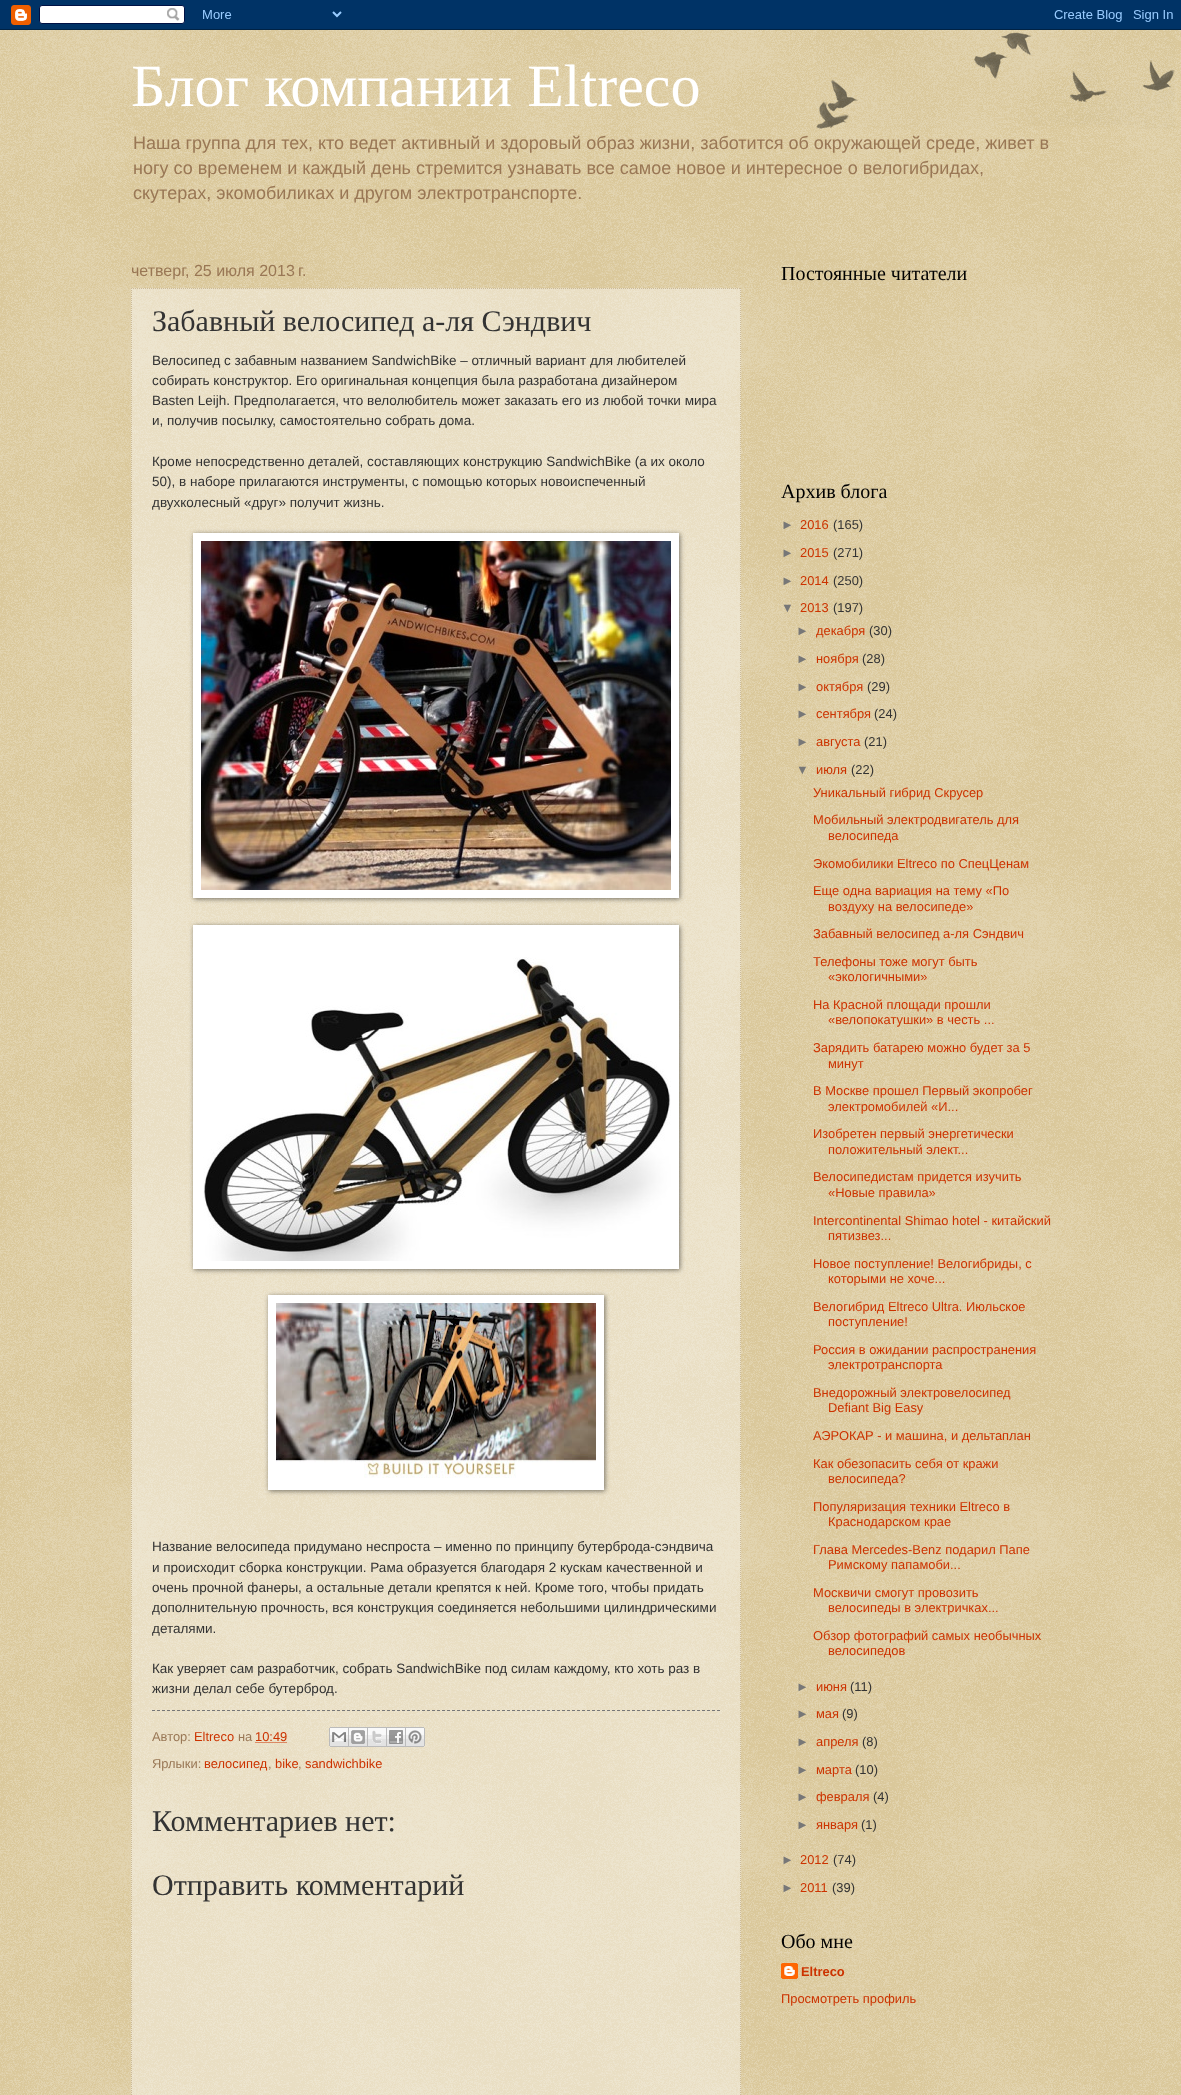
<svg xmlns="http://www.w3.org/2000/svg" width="1181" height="2095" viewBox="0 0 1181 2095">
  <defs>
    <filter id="blur1" x="-50%" y="-200%" width="200%" height="500%"><feGaussianBlur stdDeviation="2.5"/></filter>
  </defs>
  <rect width="100%" height="100%" fill="#c0a154"/>
  <image x="0" y="30" width="1181" height="2065" href="img1.png"/>
  <image x="0" y="0" width="1181" height="30" href="img2.png"/>
  <image x="816" y="32" width="359" height="97" href="img3.png"/>
  <text x="131" y="106" font-family="Liberation Serif" font-size="60" fill="#ffffff">Блог компании Eltreco</text>
  <text x="133" y="149" font-family="Liberation Sans" font-size="18.03" fill="#997755">Наша группа для тех, кто ведет активный и здоровый образ жизни, заботится об окружающей среде, живет в</text>
  <text x="133" y="174" font-family="Liberation Sans" font-size="18.03" fill="#997755">ногу со временем и каждый день стремится узнавать все самое новое и интересное о велогибридах,</text>
  <text x="133" y="199" font-family="Liberation Sans" font-size="18.03" fill="#997755">скутерах, экомобиликах и другом электротранспорте.</text>
  <text x="131" y="276" font-family="Liberation Sans" font-size="16" fill="#997755">четверг, 25 июля 2013 г.</text>
  <rect x="131" y="288" width="610" height="1807" fill="#ffffff" fill-opacity="0.4"/>
  <path d="M131 288.5H741" fill="none" stroke="#ccbb99" stroke-dasharray="1 1"/>
  <path d="M740.5 288V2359" fill="none" stroke="#ccbb99" stroke-dasharray="1 1"/>
  <path d="M131.5 288V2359" fill="none" stroke="#ccbb99" stroke-dasharray="1 1"/>
  <text x="152" y="331" font-family="Liberation Serif" font-size="30" fill="#333333">Забавный велосипед а-ля Сэндвич</text>
  <text x="152" y="365" font-family="Liberation Sans" font-size="13.5" fill="#333333">Велосипед с забавным названием SandwichBike – отличный вариант для любителей</text>
  <text x="152" y="385" font-family="Liberation Sans" font-size="13.5" fill="#333333">собирать конструктор. Его оригинальная концепция была разработана дизайнером</text>
  <text x="152" y="405" font-family="Liberation Sans" font-size="13.5" fill="#333333">Basten Leijh. Предполагается, что велолюбитель может заказать его из любой точки мира</text>
  <text x="152" y="425" font-family="Liberation Sans" font-size="13.5" fill="#333333">и, получив посылку, самостоятельно собрать дома.</text>
  <text x="152" y="466" font-family="Liberation Sans" font-size="13.5" fill="#333333">Кроме непосредственно деталей, составляющих конструкцию SandwichBike (а их около</text>
  <text x="152" y="486" font-family="Liberation Sans" font-size="13.5" fill="#333333">50), в наборе прилагаются инструменты, с помощью которых новоиспеченный</text>
  <text x="152" y="507" font-family="Liberation Sans" font-size="13.5" fill="#333333">двухколесный «друг» получит жизнь.</text>
  <rect x="194" y="534" width="486" height="365" fill="#000000" fill-opacity="0.5" filter="url(#blur1)"/>
  <rect x="193" y="533" width="486" height="365" fill="#ffffff"/>
  <image x="201" y="541" width="470" height="349" href="img4.png"/>
  <rect x="194" y="926" width="486" height="344" fill="#000000" fill-opacity="0.5" filter="url(#blur1)"/>
  <rect x="193" y="925" width="486" height="344" fill="#ffffff"/>
  <image x="203" y="957" width="468" height="304" href="img5.png"/>
  <rect x="269" y="1296" width="336" height="195" fill="#000000" fill-opacity="0.5" filter="url(#blur1)"/>
  <rect x="268" y="1295" width="336" height="195" fill="#ffffff"/>
  <image x="276" y="1303" width="320" height="175" href="img6.png"/>
  <text x="152" y="1551" font-family="Liberation Sans" font-size="13.5" fill="#333333">Название велосипеда придумано неспроста – именно по принципу бутерброда-сэндвича</text>
  <text x="152" y="1572" font-family="Liberation Sans" font-size="13.5" fill="#333333">и происходит сборка конструкции. Рама образуется благодаря 2 кускам качественной и</text>
  <text x="152" y="1592" font-family="Liberation Sans" font-size="13.5" fill="#333333">очень прочной фанеры, а остальные детали крепятся к ней. Кроме того, чтобы придать</text>
  <text x="152" y="1612" font-family="Liberation Sans" font-size="13.5" fill="#333333">дополнительную прочность, вся конструкция соединяется небольшими цилиндрическими</text>
  <text x="152" y="1633" font-family="Liberation Sans" font-size="13.5" fill="#333333">деталями.</text>
  <text x="152" y="1673" font-family="Liberation Sans" font-size="13.5" fill="#333333">Как уверяет сам разработчик, собрать SandwichBike под силам каждому, кто хоть раз в</text>
  <text x="152" y="1693" font-family="Liberation Sans" font-size="13.5" fill="#333333">жизни делал себе бутерброд.</text>
  <path d="M152 1710.5H720" fill="none" stroke="#777777" stroke-dasharray="3 2"/>
  <text x="152" y="1741" font-family="Liberation Sans" font-size="12.9" fill="#997755">Автор:</text>
  <text x="194" y="1741" font-family="Liberation Sans" font-size="12.9" fill="#cc3300">Eltreco</text>
  <text x="238" y="1741" font-family="Liberation Sans" font-size="12.9" fill="#997755">на</text>
  <text x="255" y="1741" font-family="Liberation Sans" font-size="12.9" fill="#cc3300">10:49</text>
  <path d="M255.5 1742.5H287.5" fill="none" stroke="#cc3300" stroke-dasharray="1 1"/>
  <image x="329" y="1727" width="20" height="20" href="img7.png"/>
  <image x="349" y="1727" width="19" height="20" href="img8.png"/>
  <image x="368" y="1727" width="19" height="20" href="img9.png"/>
  <image x="387" y="1727" width="19" height="20" href="img10.png"/>
  <image x="406" y="1727" width="19" height="20" href="img11.png"/>
  <text x="152" y="1768" font-family="Liberation Sans" font-size="12.9" fill="#997755">Ярлыки:</text>
  <text x="204" y="1768" font-family="Liberation Sans" font-size="12.9" fill="#cc3300">велосипед</text>
  <text x="268" y="1768" font-family="Liberation Sans" font-size="12.9" fill="#997755">,</text>
  <text x="275" y="1768" font-family="Liberation Sans" font-size="12.9" fill="#cc3300">bike</text>
  <text x="298" y="1768" font-family="Liberation Sans" font-size="12.9" fill="#997755">,</text>
  <text x="305" y="1768" font-family="Liberation Sans" font-size="12.9" fill="#cc3300">sandwichbike</text>
  <text x="152" y="1831" font-family="Liberation Serif" font-size="30" fill="#333333">Комментариев нет:</text>
  <text x="152" y="1895" font-family="Liberation Serif" font-size="30" fill="#333333">Отправить комментарий</text>
  <text x="781" y="280" font-family="Liberation Serif" font-size="20" fill="#000000">Постоянные читатели</text>
  <text x="781" y="498" font-family="Liberation Serif" font-size="20" fill="#000000">Архив блога</text>
  <text x="781" y="529" font-family="Liberation Sans" font-size="12.9" fill="#777777">►</text>
  <text x="800" y="529" font-family="Liberation Sans" font-size="12.9" fill="#cc3300">2016</text>
  <text x="833" y="529" font-family="Liberation Sans" font-size="12.9" fill="#333333">(165)</text>
  <text x="781" y="557" font-family="Liberation Sans" font-size="12.9" fill="#777777">►</text>
  <text x="800" y="557" font-family="Liberation Sans" font-size="12.9" fill="#cc3300">2015</text>
  <text x="833" y="557" font-family="Liberation Sans" font-size="12.9" fill="#333333">(271)</text>
  <text x="781" y="585" font-family="Liberation Sans" font-size="12.9" fill="#777777">►</text>
  <text x="800" y="585" font-family="Liberation Sans" font-size="12.9" fill="#cc3300">2014</text>
  <text x="833" y="585" font-family="Liberation Sans" font-size="12.9" fill="#333333">(250)</text>
  <text x="781" y="612" font-family="Liberation Sans" font-size="12.9" fill="#777777">▼</text>
  <text x="800" y="612" font-family="Liberation Sans" font-size="12.9" fill="#cc3300">2013</text>
  <text x="833" y="612" font-family="Liberation Sans" font-size="12.9" fill="#333333">(197)</text>
  <text x="796" y="635" font-family="Liberation Sans" font-size="12.9" fill="#777777">►</text>
  <text x="816" y="635" font-family="Liberation Sans" font-size="12.9" fill="#cc3300">декабря</text>
  <text x="869" y="635" font-family="Liberation Sans" font-size="12.9" fill="#333333">(30)</text>
  <text x="796" y="663" font-family="Liberation Sans" font-size="12.9" fill="#777777">►</text>
  <text x="816" y="663" font-family="Liberation Sans" font-size="12.9" fill="#cc3300">ноября</text>
  <text x="862" y="663" font-family="Liberation Sans" font-size="12.9" fill="#333333">(28)</text>
  <text x="796" y="691" font-family="Liberation Sans" font-size="12.9" fill="#777777">►</text>
  <text x="816" y="691" font-family="Liberation Sans" font-size="12.9" fill="#cc3300">октября</text>
  <text x="867" y="691" font-family="Liberation Sans" font-size="12.9" fill="#333333">(29)</text>
  <text x="796" y="718" font-family="Liberation Sans" font-size="12.9" fill="#777777">►</text>
  <text x="816" y="718" font-family="Liberation Sans" font-size="12.9" fill="#cc3300">сентября</text>
  <text x="874" y="718" font-family="Liberation Sans" font-size="12.9" fill="#333333">(24)</text>
  <text x="796" y="746" font-family="Liberation Sans" font-size="12.9" fill="#777777">►</text>
  <text x="816" y="746" font-family="Liberation Sans" font-size="12.9" fill="#cc3300">августа</text>
  <text x="864" y="746" font-family="Liberation Sans" font-size="12.9" fill="#333333">(21)</text>
  <text x="796" y="774" font-family="Liberation Sans" font-size="12.9" fill="#777777">▼</text>
  <text x="816" y="774" font-family="Liberation Sans" font-size="12.9" fill="#cc3300">июля</text>
  <text x="851" y="774" font-family="Liberation Sans" font-size="12.9" fill="#333333">(22)</text>
  <text x="813" y="797" font-family="Liberation Sans" font-size="12.9" fill="#cc3300">Уникальный гибрид Скрусер</text>
  <text x="813" y="824" font-family="Liberation Sans" font-size="12.9" fill="#cc3300">Мобильный электродвигатель для</text>
  <text x="828" y="840" font-family="Liberation Sans" font-size="12.9" fill="#cc3300">велосипеда</text>
  <text x="813" y="868" font-family="Liberation Sans" font-size="12.9" fill="#cc3300">Экомобилики Eltreco по СпецЦенам</text>
  <text x="813" y="895" font-family="Liberation Sans" font-size="12.9" fill="#cc3300">Еще одна вариация на тему «По</text>
  <text x="828" y="911" font-family="Liberation Sans" font-size="12.9" fill="#cc3300">воздуху на велосипеде»</text>
  <text x="813" y="938" font-family="Liberation Sans" font-size="12.9" fill="#cc3300">Забавный велосипед а-ля Сэндвич</text>
  <text x="813" y="966" font-family="Liberation Sans" font-size="12.9" fill="#cc3300">Телефоны тоже могут быть</text>
  <text x="828" y="981" font-family="Liberation Sans" font-size="12.9" fill="#cc3300">«экологичными»</text>
  <text x="813" y="1009" font-family="Liberation Sans" font-size="12.9" fill="#cc3300">На Красной площади прошли</text>
  <text x="828" y="1024" font-family="Liberation Sans" font-size="12.9" fill="#cc3300">«велопокатушки» в честь ...</text>
  <text x="813" y="1052" font-family="Liberation Sans" font-size="12.9" fill="#cc3300">Зарядить батарею можно будет за 5</text>
  <text x="828" y="1068" font-family="Liberation Sans" font-size="12.9" fill="#cc3300">минут</text>
  <text x="813" y="1095" font-family="Liberation Sans" font-size="12.9" fill="#cc3300">В Москве прошел Первый экопробег</text>
  <text x="828" y="1111" font-family="Liberation Sans" font-size="12.9" fill="#cc3300">электромобилей «И...</text>
  <text x="813" y="1138" font-family="Liberation Sans" font-size="12.9" fill="#cc3300">Изобретен первый энергетически</text>
  <text x="828" y="1154" font-family="Liberation Sans" font-size="12.9" fill="#cc3300">положительный элект...</text>
  <text x="813" y="1181" font-family="Liberation Sans" font-size="12.9" fill="#cc3300">Велосипедистам придется изучить</text>
  <text x="828" y="1197" font-family="Liberation Sans" font-size="12.9" fill="#cc3300">«Новые правила»</text>
  <text x="813" y="1225" font-family="Liberation Sans" font-size="12.9" fill="#cc3300">Intercontinental Shimao hotel - китайский</text>
  <text x="828" y="1240" font-family="Liberation Sans" font-size="12.9" fill="#cc3300">пятизвез...</text>
  <text x="813" y="1268" font-family="Liberation Sans" font-size="12.9" fill="#cc3300">Новое поступление! Велогибриды, с</text>
  <text x="828" y="1283" font-family="Liberation Sans" font-size="12.9" fill="#cc3300">которыми не хоче...</text>
  <text x="813" y="1311" font-family="Liberation Sans" font-size="12.9" fill="#cc3300">Велогибрид Eltreco Ultra. Июльское</text>
  <text x="828" y="1326" font-family="Liberation Sans" font-size="12.9" fill="#cc3300">поступление!</text>
  <text x="813" y="1354" font-family="Liberation Sans" font-size="12.9" fill="#cc3300">Россия в ожидании распространения</text>
  <text x="828" y="1369" font-family="Liberation Sans" font-size="12.9" fill="#cc3300">электротранспорта</text>
  <text x="813" y="1397" font-family="Liberation Sans" font-size="12.9" fill="#cc3300">Внедорожный электровелосипед</text>
  <text x="828" y="1412" font-family="Liberation Sans" font-size="12.9" fill="#cc3300">Defiant Big Easy</text>
  <text x="813" y="1440" font-family="Liberation Sans" font-size="12.9" fill="#cc3300">АЭРОКАР - и машина, и дельтаплан</text>
  <text x="813" y="1468" font-family="Liberation Sans" font-size="12.9" fill="#cc3300">Как обезопасить себя от кражи</text>
  <text x="828" y="1483" font-family="Liberation Sans" font-size="12.9" fill="#cc3300">велосипеда?</text>
  <text x="813" y="1511" font-family="Liberation Sans" font-size="12.9" fill="#cc3300">Популяризация техники Eltreco в</text>
  <text x="828" y="1526" font-family="Liberation Sans" font-size="12.9" fill="#cc3300">Краснодарском крае</text>
  <text x="813" y="1554" font-family="Liberation Sans" font-size="12.9" fill="#cc3300">Глава Mercedes-Benz подарил Папе</text>
  <text x="828" y="1569" font-family="Liberation Sans" font-size="12.9" fill="#cc3300">Римскому папамоби...</text>
  <text x="813" y="1597" font-family="Liberation Sans" font-size="12.9" fill="#cc3300">Москвичи смогут провозить</text>
  <text x="828" y="1612" font-family="Liberation Sans" font-size="12.9" fill="#cc3300">велосипеды в электричках...</text>
  <text x="813" y="1640" font-family="Liberation Sans" font-size="12.9" fill="#cc3300">Обзор фотографий самых необычных</text>
  <text x="828" y="1655" font-family="Liberation Sans" font-size="12.9" fill="#cc3300">велосипедов</text>
  <text x="796" y="1691" font-family="Liberation Sans" font-size="12.9" fill="#777777">►</text>
  <text x="816" y="1691" font-family="Liberation Sans" font-size="12.9" fill="#cc3300">июня</text>
  <text x="850" y="1691" font-family="Liberation Sans" font-size="12.9" fill="#333333">(11)</text>
  <text x="796" y="1718" font-family="Liberation Sans" font-size="12.9" fill="#777777">►</text>
  <text x="816" y="1718" font-family="Liberation Sans" font-size="12.9" fill="#cc3300">мая</text>
  <text x="842" y="1718" font-family="Liberation Sans" font-size="12.9" fill="#333333">(9)</text>
  <text x="796" y="1746" font-family="Liberation Sans" font-size="12.9" fill="#777777">►</text>
  <text x="816" y="1746" font-family="Liberation Sans" font-size="12.9" fill="#cc3300">апреля</text>
  <text x="862" y="1746" font-family="Liberation Sans" font-size="12.9" fill="#333333">(8)</text>
  <text x="796" y="1774" font-family="Liberation Sans" font-size="12.9" fill="#777777">►</text>
  <text x="816" y="1774" font-family="Liberation Sans" font-size="12.9" fill="#cc3300">марта</text>
  <text x="855" y="1774" font-family="Liberation Sans" font-size="12.9" fill="#333333">(10)</text>
  <text x="796" y="1801" font-family="Liberation Sans" font-size="12.9" fill="#777777">►</text>
  <text x="816" y="1801" font-family="Liberation Sans" font-size="12.9" fill="#cc3300">февраля</text>
  <text x="873" y="1801" font-family="Liberation Sans" font-size="12.9" fill="#333333">(4)</text>
  <text x="796" y="1829" font-family="Liberation Sans" font-size="12.9" fill="#777777">►</text>
  <text x="816" y="1829" font-family="Liberation Sans" font-size="12.9" fill="#cc3300">января</text>
  <text x="861" y="1829" font-family="Liberation Sans" font-size="12.9" fill="#333333">(1)</text>
  <text x="781" y="1864" font-family="Liberation Sans" font-size="12.9" fill="#777777">►</text>
  <text x="800" y="1864" font-family="Liberation Sans" font-size="12.9" fill="#cc3300">2012</text>
  <text x="833" y="1864" font-family="Liberation Sans" font-size="12.9" fill="#333333">(74)</text>
  <text x="781" y="1892" font-family="Liberation Sans" font-size="12.9" fill="#777777">►</text>
  <text x="800" y="1892" font-family="Liberation Sans" font-size="12.9" fill="#cc3300">2011</text>
  <text x="832" y="1892" font-family="Liberation Sans" font-size="12.9" fill="#333333">(39)</text>
  <text x="781" y="1948" font-family="Liberation Serif" font-size="20" fill="#000000">Обо мне</text>
  <image x="781" y="1963" width="17" height="16" href="img12.png"/>
  <text x="801" y="1976" font-family="Liberation Sans" font-size="12.9" font-weight="bold" fill="#cc3300">Eltreco</text>
  <text x="781" y="2003" font-family="Liberation Sans" font-size="12.9" fill="#cc3300">Просмотреть профиль</text>
</svg>
